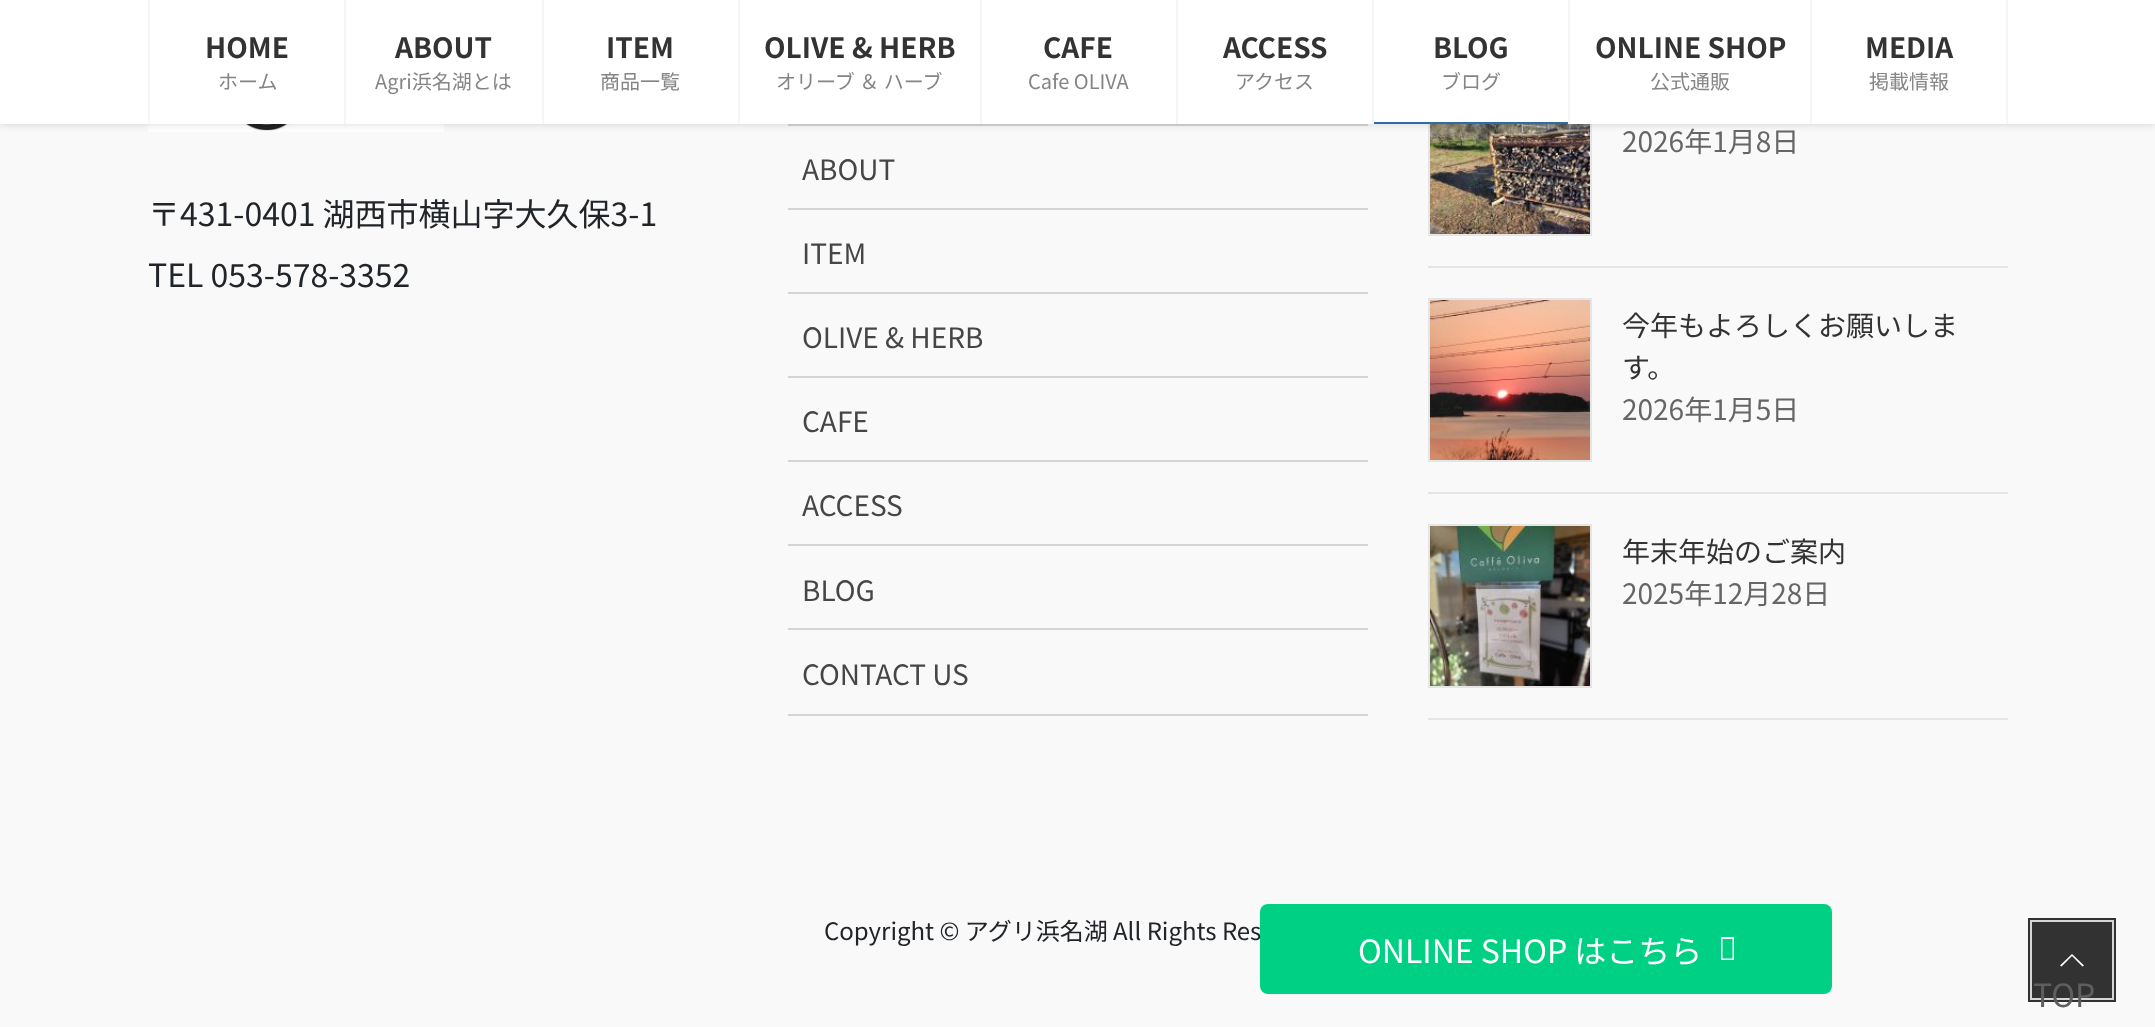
<svg xmlns="http://www.w3.org/2000/svg" width="2155" height="1027" viewBox="0 0 2155 1027">
  <defs>
    <filter id="blur1" x="-50%" y="-200%" width="200%" height="500%"><feGaussianBlur stdDeviation="3"/></filter>
  </defs>
  <rect width="100%" height="100%" fill="#f9f9f9"/>
  <image x="148" y="124" width="296" height="8" href="img1.png"/>
  <rect x="788" y="124" width="580" height="2" fill="#d4d4d4"/>
  <rect x="1429" y="73" width="162" height="162" fill="none" stroke="#e5e5e5" stroke-width="2"/>
  <image x="1430" y="124" width="160" height="110" href="img2.png"/>
  <rect x="0" y="2" width="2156" height="124" fill="#000000" fill-opacity="0.1" filter="url(#blur1)"/>
  <rect x="0" y="0" width="2155" height="124" fill="#ffffff"/>
  <rect x="148" y="0" width="2" height="124" fill="#f5f5f5"/>
  <text x="205" y="58" font-family="Noto Sans JP" font-size="28" font-weight="bold" fill="#333333">HOME</text>
  <text x="218" y="89" font-family="Noto Sans JP" font-size="20" fill="#858585">ホーム</text>
  <rect x="344" y="0" width="2" height="124" fill="#f5f5f5"/>
  <text x="395" y="58" font-family="Noto Sans JP" font-size="28" font-weight="bold" fill="#333333">ABOUT</text>
  <text x="375" y="89" font-family="Noto Sans JP" font-size="20" fill="#858585">Agri浜名湖とは</text>
  <rect x="542" y="0" width="2" height="124" fill="#f5f5f5"/>
  <text x="606" y="58" font-family="Noto Sans JP" font-size="28" font-weight="bold" fill="#333333">ITEM</text>
  <text x="600" y="89" font-family="Noto Sans JP" font-size="20" fill="#858585">商品一覧</text>
  <rect x="738" y="0" width="2" height="124" fill="#f5f5f5"/>
  <text x="764" y="58" font-family="Noto Sans JP" font-size="28" font-weight="bold" fill="#333333">OLIVE &amp; HERB</text>
  <text x="776" y="89" font-family="Noto Sans JP" font-size="20" fill="#858585">オリーブ ＆ ハーブ</text>
  <rect x="980" y="0" width="2" height="124" fill="#f5f5f5"/>
  <text x="1043" y="58" font-family="Noto Sans JP" font-size="28" font-weight="bold" fill="#333333">CAFE</text>
  <text x="1028" y="89" font-family="Noto Sans JP" font-size="20" fill="#858585">Cafe OLIVA</text>
  <rect x="1176" y="0" width="2" height="124" fill="#f5f5f5"/>
  <text x="1223" y="58" font-family="Noto Sans JP" font-size="28" font-weight="bold" fill="#333333">ACCESS</text>
  <text x="1235" y="89" font-family="Noto Sans JP" font-size="20" fill="#858585">アクセス</text>
  <rect x="1372" y="0" width="2" height="124" fill="#f5f5f5"/>
  <text x="1433" y="58" font-family="Noto Sans JP" font-size="28" font-weight="bold" fill="#333333">BLOG</text>
  <text x="1441" y="89" font-family="Noto Sans JP" font-size="20" fill="#858585">ブログ</text>
  <rect x="1374" y="122" width="194" height="2" fill="#2e6da4"/>
  <rect x="1568" y="0" width="2" height="124" fill="#f5f5f5"/>
  <text x="1595" y="58" font-family="Noto Sans JP" font-size="28" font-weight="bold" fill="#333333">ONLINE SHOP</text>
  <text x="1650" y="89" font-family="Noto Sans JP" font-size="20" fill="#858585">公式通販</text>
  <rect x="2006" y="0" width="2" height="124" fill="#f5f5f5"/>
  <rect x="1810" y="0" width="2" height="124" fill="#f5f5f5"/>
  <text x="1865" y="58" font-family="Noto Sans JP" font-size="28" font-weight="bold" fill="#333333">MEDIA</text>
  <text x="1869" y="89" font-family="Noto Sans JP" font-size="20" fill="#858585">掲載情報</text>
  <text x="148" y="226" font-family="Noto Sans JP" font-size="32" fill="#212529">〒431-0401 湖西市横山字大久保3-1</text>
  <text x="148" y="287" font-family="Noto Sans JP" font-size="32" fill="#212529">TEL 053-578-3352</text>
  <rect x="788" y="208" width="580" height="2" fill="#d4d4d4"/>
  <text x="802" y="180" font-family="Noto Sans JP" font-size="28" fill="#464646">ABOUT</text>
  <rect x="788" y="292" width="580" height="2" fill="#d4d4d4"/>
  <text x="802" y="264" font-family="Noto Sans JP" font-size="28" fill="#464646">ITEM</text>
  <rect x="788" y="376" width="580" height="2" fill="#d4d4d4"/>
  <text x="802" y="348" font-family="Noto Sans JP" font-size="28" fill="#464646">OLIVE &amp; HERB</text>
  <rect x="788" y="460" width="580" height="2" fill="#d4d4d4"/>
  <text x="802" y="432" font-family="Noto Sans JP" font-size="28" fill="#464646">CAFE</text>
  <rect x="788" y="544" width="580" height="2" fill="#d4d4d4"/>
  <text x="802" y="516" font-family="Noto Sans JP" font-size="28" fill="#464646">ACCESS</text>
  <rect x="788" y="628" width="580" height="2" fill="#d4d4d4"/>
  <text x="802" y="601" font-family="Noto Sans JP" font-size="28" fill="#464646">BLOG</text>
  <rect x="788" y="714" width="580" height="2" fill="#d4d4d4"/>
  <text x="802" y="685" font-family="Noto Sans JP" font-size="28" fill="#464646">CONTACT US</text>
  <rect x="1428" y="266" width="580" height="2" fill="#e5e5e5"/>
  <text x="1622" y="152" font-family="Noto Sans JP" font-size="28" fill="#666666">2026年1月8日</text>
  <rect x="1428" y="492" width="580" height="2" fill="#e5e5e5"/>
  <rect x="1429" y="299" width="162" height="162" fill="none" stroke="#e5e5e5" stroke-width="2"/>
  <image x="1430" y="300" width="160" height="160" href="img3.png"/>
  <text x="1622" y="336" font-family="Noto Sans JP" font-size="28" fill="#333333">今年もよろしくお願いしま</text>
  <text x="1622" y="378" font-family="Noto Sans JP" font-size="28" fill="#333333">す。</text>
  <text x="1622" y="420" font-family="Noto Sans JP" font-size="28" fill="#666666">2026年1月5日</text>
  <rect x="1428" y="718" width="580" height="2" fill="#e5e5e5"/>
  <rect x="1429" y="525" width="162" height="162" fill="none" stroke="#e5e5e5" stroke-width="2"/>
  <image x="1430" y="526" width="160" height="160" href="img4.png"/>
  <text x="1622" y="562" font-family="Noto Sans JP" font-size="28" fill="#333333">年末年始のご案内</text>
  <text x="1622" y="604" font-family="Noto Sans JP" font-size="28" fill="#666666">2025年12月28日</text>
  <text x="824" y="940" font-family="Noto Sans JP" font-size="24" fill="#212529">Copyright © アグリ浜名湖 All Rights Res</text>
  <rect x="1260" y="904" width="572" height="90" rx="8" fill="#00d084"/>
  <text x="1358" y="963" font-family="Noto Sans JP" font-size="32" fill="#ffffff">ONLINE SHOP はこちら</text>
  <path d="M1721 960V937H1734V960ZM1722.5 958.5H1732.5V939H1722.5Z" fill="#ffffff"/>
  <rect x="2030" y="920" width="84" height="80" fill="none" stroke="#323232" stroke-width="4"/>
  <rect x="2031" y="921" width="82" height="78" fill="none" stroke="#d6d6d6" stroke-width="2"/>
  <rect x="2032" y="922" width="80" height="76" fill="#323232"/>
  <path d="M2084 965.5L2082.5 966.5L2072 956L2061.5 966.5L2060 965.5L2072 954Z" fill="#ffffff"/>
  <text x="2033" y="1007" font-family="Noto Sans JP" font-size="32" fill="#5e5e5e">TOP</text>
</svg>
